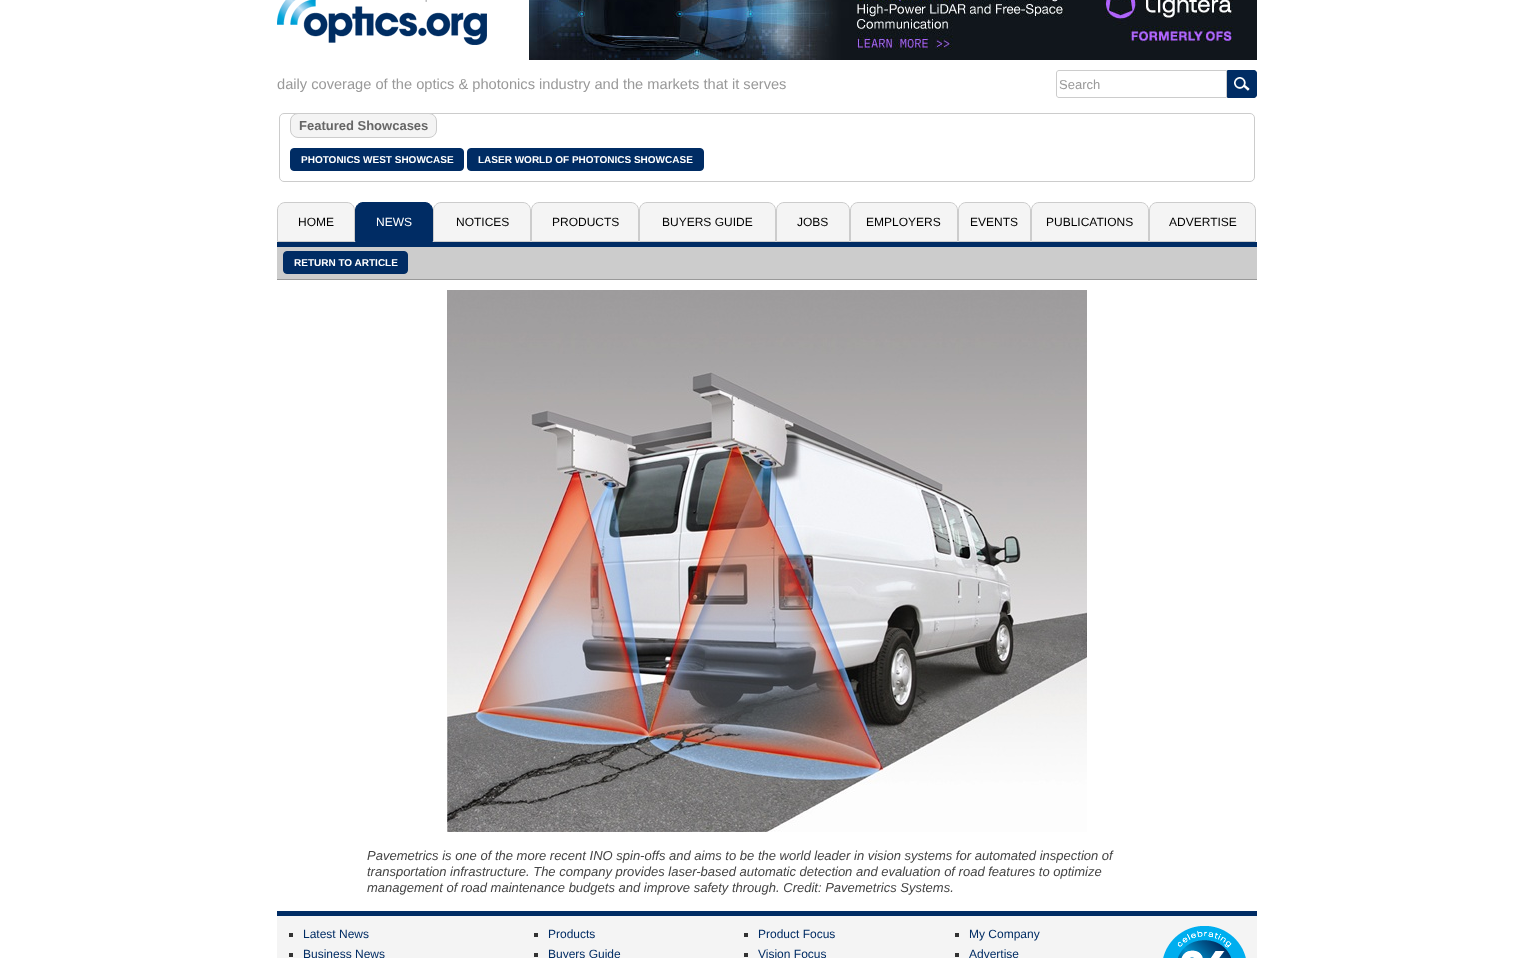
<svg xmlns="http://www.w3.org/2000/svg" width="1533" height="958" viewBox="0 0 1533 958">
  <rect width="100%" height="100%" fill="#ffffff"/>
  <image x="277" y="0" width="210" height="45" href="img1.png"/>
  <image x="529" y="0" width="728" height="60" href="img2.png"/>
  <text x="277" y="89" font-family="Liberation Sans" font-size="14.65" fill="#999999">daily coverage of the optics &amp; photonics industry and the markets that it serves</text>
  <path d="M1059 70.5H1226.5V97.5H1059C1057.5 97.5 1056.5 96.5 1056.5 95V73C1056.5 71.5 1057.5 70.5 1059 70.5Z" fill="none" stroke="#cccccc"/>
  <text x="1059" y="89" font-family="Liberation Sans" font-size="13" fill="#999999">Search</text>
  <path d="M1227.5 70.5H1254C1255.5 70.5 1256.5 71.5 1256.5 73V95C1256.5 96.5 1255.5 97.5 1254 97.5H1227.5Z" fill="none" stroke="#002c64"/>
  <rect x="1228" y="71" width="28" height="26" fill="#002c64"/>
  <image x="1234" y="77" width="16" height="14" href="img3.png"/>
  <rect x="279.5" y="113.5" width="975" height="68" rx="4.5" fill="none" stroke="#cccccc"/>
  <rect x="290.5" y="113.5" width="146" height="24" rx="7.5" fill="#f4f4f4" stroke="#cccccc"/>
  <text x="299" y="130" font-family="Liberation Sans" font-size="13" font-weight="bold" fill="#666666">Featured Showcases</text>
  <rect x="290.5" y="148.5" width="173" height="22" rx="3.5" fill="#002c64" stroke="#002c64"/>
  <text x="301" y="163" font-family="Liberation Sans" font-size="10" font-weight="bold" fill="#ffffff">PHOTONICS WEST SHOWCASE</text>
  <rect x="467.5" y="148.5" width="236" height="22" rx="3.5" fill="#002c64" stroke="#002c64"/>
  <text x="478" y="163" font-family="Liberation Sans" font-size="10" font-weight="bold" fill="#ffffff">LASER WORLD OF PHOTONICS SHOWCASE</text>
  <rect x="277" y="242" width="980" height="5" fill="#002c64"/>
  <path d="M285 202.5H347C351 202.5 354.5 206 354.5 210V241.5H277.5V210C277.5 206 281 202.5 285 202.5Z" fill="#f4f4f4" stroke="#cccccc"/>
  <text x="298" y="226" font-family="Liberation Sans" font-size="12" fill="#000000">HOME</text>
  <path d="M363 202.5H425C429 202.5 432.5 206 432.5 210V241.5H355.5V210C355.5 206 359 202.5 363 202.5Z" fill="#002c64" stroke="#002c64"/>
  <text x="376" y="226" font-family="Liberation Sans" font-size="12" fill="#ffffff">NEWS</text>
  <path d="M441 202.5H523C527 202.5 530.5 206 530.5 210V241.5H433.5V210C433.5 206 437 202.5 441 202.5Z" fill="#f4f4f4" stroke="#cccccc"/>
  <text x="456" y="226" font-family="Liberation Sans" font-size="12" fill="#000000">NOTICES</text>
  <path d="M539 202.5H631C635 202.5 638.5 206 638.5 210V241.5H531.5V210C531.5 206 535 202.5 539 202.5Z" fill="#f4f4f4" stroke="#cccccc"/>
  <text x="552" y="226" font-family="Liberation Sans" font-size="12" fill="#000000">PRODUCTS</text>
  <path d="M647 202.5H768C772 202.5 775.5 206 775.5 210V241.5H639.5V210C639.5 206 643 202.5 647 202.5Z" fill="#f4f4f4" stroke="#cccccc"/>
  <text x="662" y="226" font-family="Liberation Sans" font-size="12" fill="#000000">BUYERS GUIDE</text>
  <path d="M784 202.5H842C846 202.5 849.5 206 849.5 210V241.5H776.5V210C776.5 206 780 202.5 784 202.5Z" fill="#f4f4f4" stroke="#cccccc"/>
  <text x="797" y="226" font-family="Liberation Sans" font-size="12" fill="#000000">JOBS</text>
  <path d="M858 202.5H950C954 202.5 957.5 206 957.5 210V241.5H850.5V210C850.5 206 854 202.5 858 202.5Z" fill="#f4f4f4" stroke="#cccccc"/>
  <text x="866" y="226" font-family="Liberation Sans" font-size="12" fill="#000000">EMPLOYERS</text>
  <path d="M966 202.5H1023C1027 202.5 1030.5 206 1030.5 210V241.5H958.5V210C958.5 206 962 202.5 966 202.5Z" fill="#f4f4f4" stroke="#cccccc"/>
  <text x="970" y="226" font-family="Liberation Sans" font-size="12" fill="#000000">EVENTS</text>
  <path d="M1039 202.5H1141C1145 202.5 1148.5 206 1148.5 210V241.5H1031.5V210C1031.5 206 1035 202.5 1039 202.5Z" fill="#f4f4f4" stroke="#cccccc"/>
  <text x="1046" y="226" font-family="Liberation Sans" font-size="12" fill="#000000">PUBLICATIONS</text>
  <path d="M1157 202.5H1248C1252 202.5 1255.5 206 1255.5 210V241.5H1149.5V210C1149.5 206 1153 202.5 1157 202.5Z" fill="#f4f4f4" stroke="#cccccc"/>
  <text x="1169" y="226" font-family="Liberation Sans" font-size="12" fill="#000000">ADVERTISE</text>
  <rect x="277" y="247" width="980" height="32" fill="#cccccc"/>
  <rect x="277" y="279" width="980" height="1" fill="#999999"/>
  <rect x="283.5" y="251.5" width="124" height="22" rx="3.5" fill="#002c64" stroke="#002c64"/>
  <text x="294" y="266" font-family="Liberation Sans" font-size="10" font-weight="bold" fill="#ffffff">RETURN TO ARTICLE</text>
  <image x="447" y="290" width="640" height="542" href="img4.png"/>
  <text x="367" y="860" font-family="Liberation Sans" font-size="13" font-style="italic" fill="#444444">Pavemetrics is one of the more recent INO spin-offs and aims to be the world leader in vision systems for automated inspection of</text>
  <text x="367" y="876" font-family="Liberation Sans" font-size="13" font-style="italic" fill="#444444">transportation infrastructure. The company provides laser-based automatic detection and evaluation of road features to optimize</text>
  <text x="367" y="892" font-family="Liberation Sans" font-size="13" font-style="italic" fill="#444444">management of road maintenance budgets and improve safety through. Credit: Pavemetrics Systems.</text>
  <rect x="277" y="916" width="980" height="42" fill="#f4f4f4"/>
  <rect x="277" y="911" width="980" height="5" fill="#002c64"/>
  <rect x="289" y="933" width="4" height="4" fill="#333333"/>
  <text x="303" y="938" font-family="Liberation Sans" font-size="12" fill="#002c64">Latest News</text>
  <rect x="289" y="953" width="4" height="4" fill="#333333"/>
  <text x="303" y="958" font-family="Liberation Sans" font-size="12" fill="#002c64">Business News</text>
  <rect x="534" y="933" width="4" height="4" fill="#333333"/>
  <text x="548" y="938" font-family="Liberation Sans" font-size="12" fill="#002c64">Products</text>
  <rect x="534" y="953" width="4" height="4" fill="#333333"/>
  <text x="548" y="958" font-family="Liberation Sans" font-size="12" fill="#002c64">Buyers Guide</text>
  <rect x="744" y="933" width="4" height="4" fill="#333333"/>
  <text x="758" y="938" font-family="Liberation Sans" font-size="12" fill="#002c64">Product Focus</text>
  <rect x="744" y="953" width="4" height="4" fill="#333333"/>
  <text x="758" y="958" font-family="Liberation Sans" font-size="12" fill="#002c64">Vision Focus</text>
  <rect x="955" y="933" width="4" height="4" fill="#333333"/>
  <text x="969" y="938" font-family="Liberation Sans" font-size="12" fill="#002c64">My Company</text>
  <rect x="955" y="953" width="4" height="4" fill="#333333"/>
  <text x="969" y="958" font-family="Liberation Sans" font-size="12" fill="#002c64">Advertise</text>
  <image x="1163" y="926" width="83" height="32" href="img5.png"/>
</svg>
